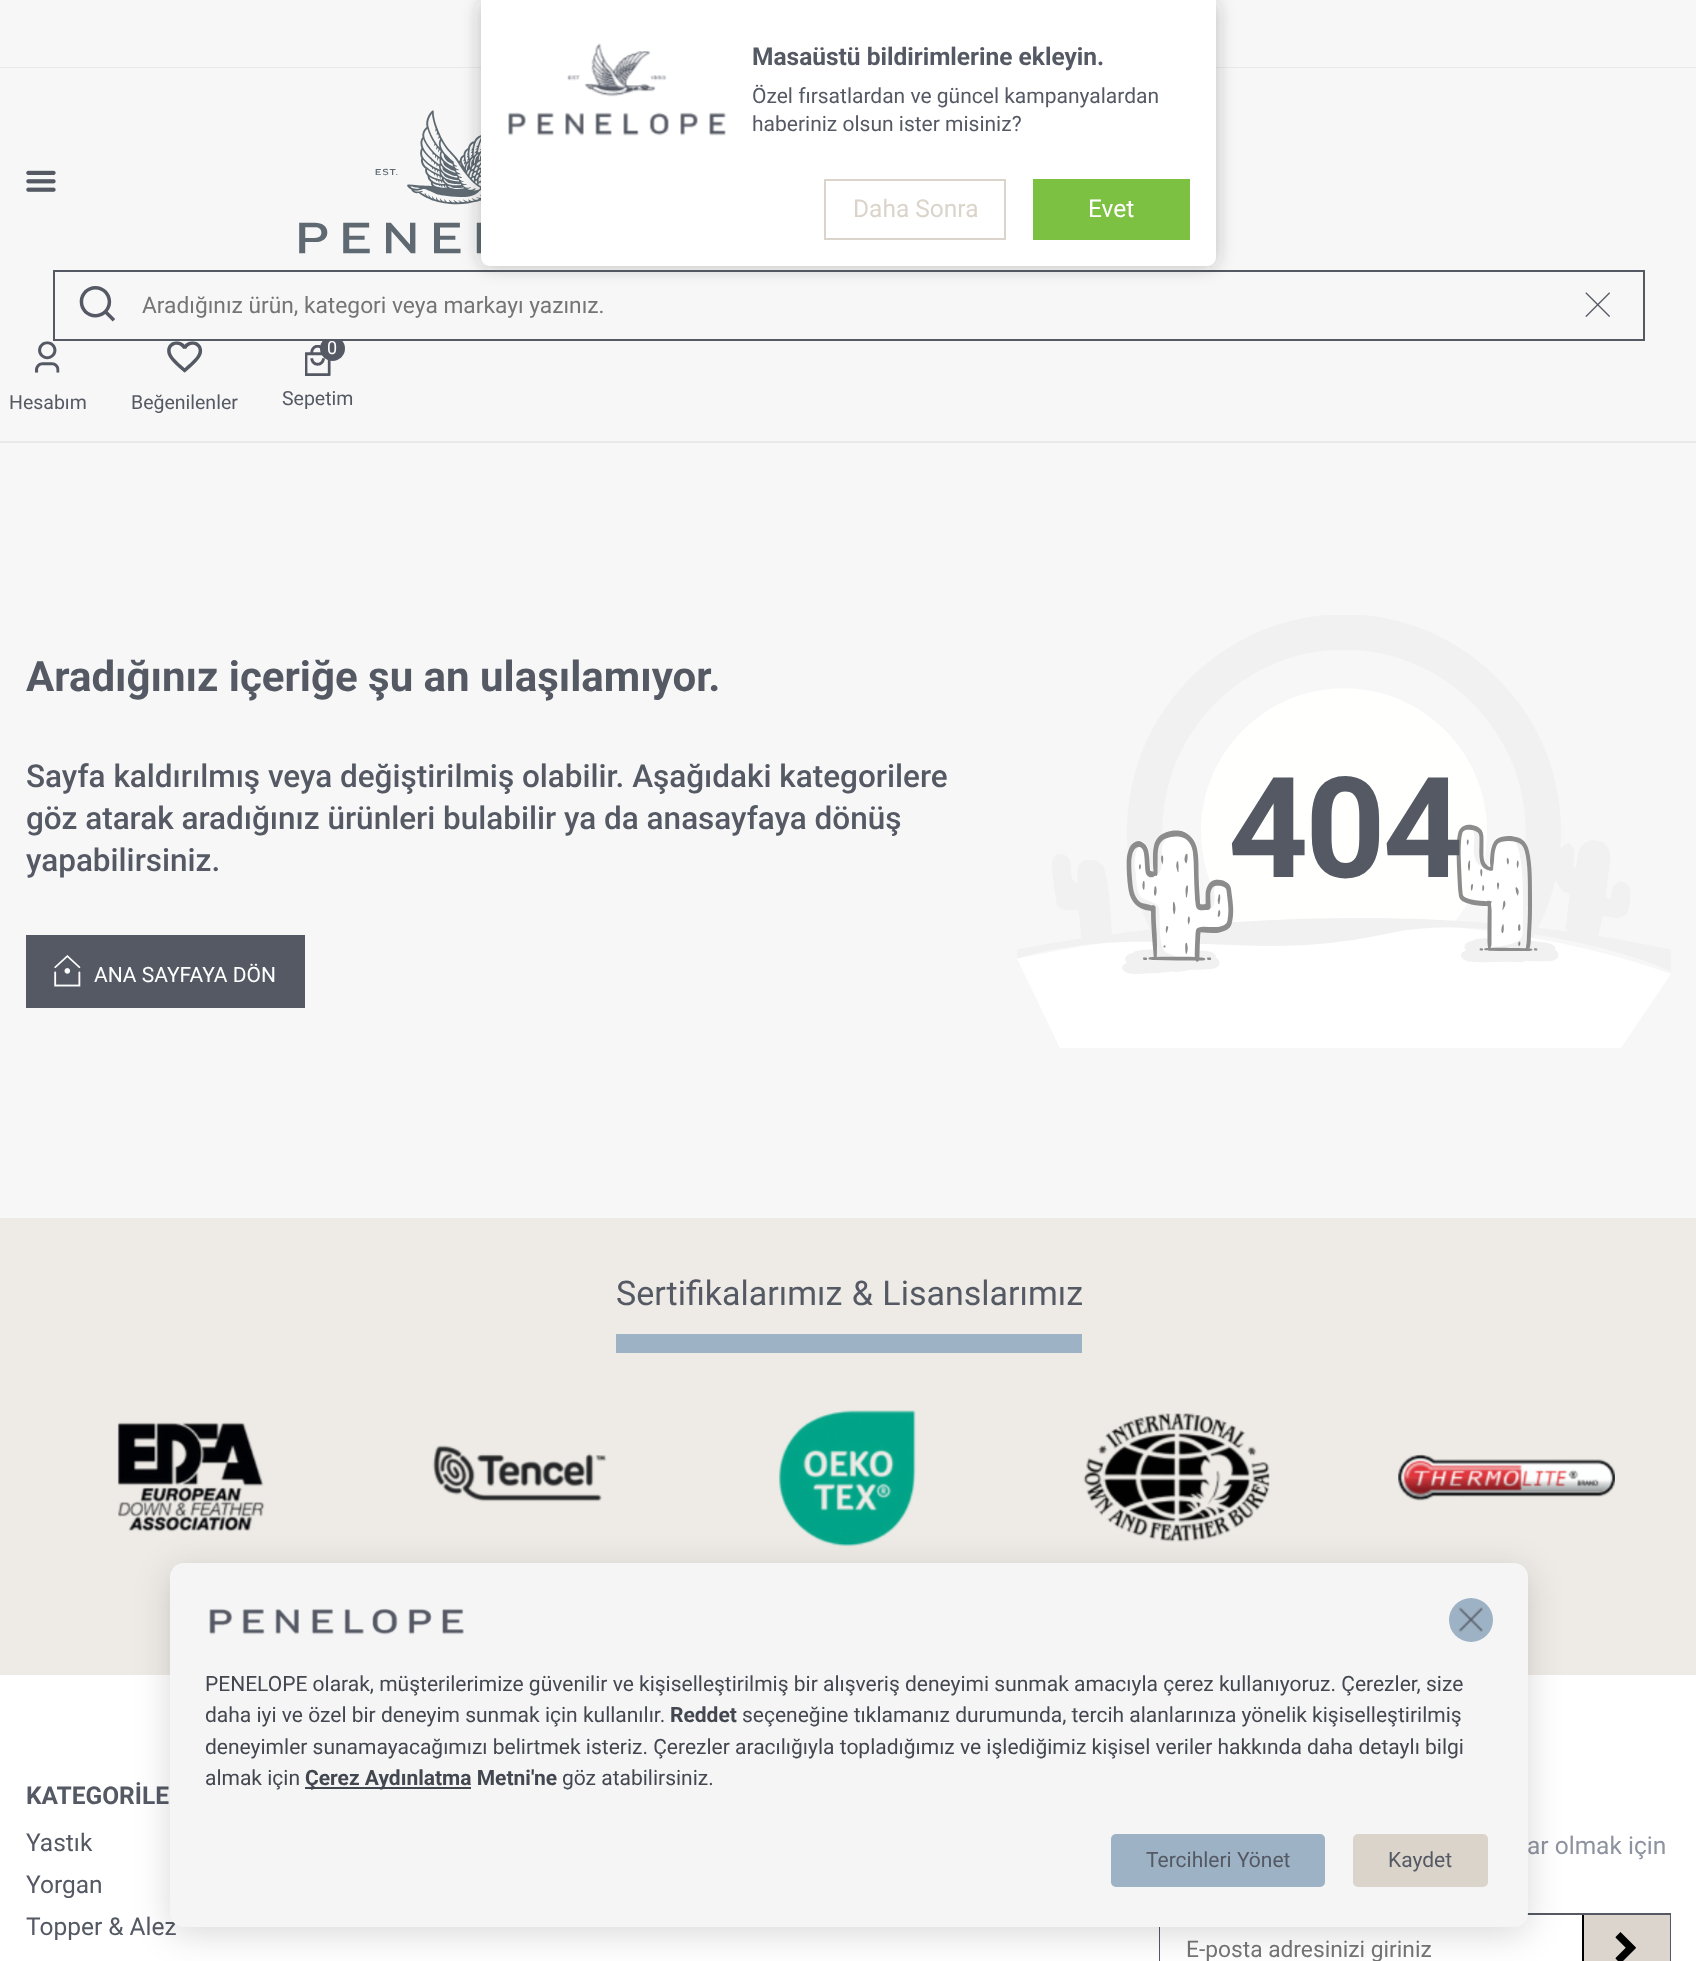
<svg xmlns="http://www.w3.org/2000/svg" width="1696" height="1961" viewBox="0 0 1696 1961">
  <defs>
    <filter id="blur1" x="-50%" y="-200%" width="200%" height="500%"><feGaussianBlur stdDeviation="9"/></filter>
    <filter id="blur2" x="-50%" y="-200%" width="200%" height="500%"><feGaussianBlur stdDeviation="17.5"/></filter>
  </defs>
  <rect width="100%" height="100%" fill="#f7f7f7"/>
  <rect x="0" y="67" width="1696" height="1" fill="#e9e9e9"/>
  <image x="299" y="110" width="182" height="144" href="img3.png"/>
  <image x="305" y="345" width="26" height="31" href="img8.png"/>
  <circle cx="332.5" cy="348.5" r="12.5" fill="#545964"/>
  <rect x="324" y="336" width="17" height="3" fill="#f7f7f7"/>
  <rect x="54" y="271" width="1590" height="69" fill="none" stroke="#545964" stroke-width="2"/>
  <rect x="481" y="0" width="735" height="266" rx="9" fill="#282828" fill-opacity="0.3" filter="url(#blur1)"/>
  <path d="M481 0H1216V257C1216 262 1212 266 1207 266H490C485 266 481 262 481 257Z" fill="#ffffff"/>
  <image x="508" y="43" width="218" height="93" href="img1.png"/>
  <text x="752" y="65" font-family="Roboto" font-size="24.5" font-weight="bold" fill="#545964">Masaüstü bildirimlerine ekleyin.</text>
  <text x="752" y="103" font-family="Roboto" font-size="21" fill="#545964">Özel fırsatlardan ve güncel kampanyalardan</text>
  <text x="752" y="131" font-family="Roboto" font-size="21" fill="#545964">haberiniz olsun ister misiniz?</text>
  <rect x="825" y="180" width="180" height="59" fill="none" stroke="#dbd4cb" stroke-width="2"/>
  <text x="853" y="217" font-family="Roboto" font-size="24.5" fill="#dbd4cb">Daha Sonra</text>
  <rect x="1033" y="179" width="157" height="61" fill="#7dc142"/>
  <text x="1088" y="217" font-family="Roboto" font-size="24.5" fill="#ffffff">Evet</text>
  <rect x="0" y="441" width="1696" height="2" fill="#e9e9e9"/>
  <image x="26" y="170" width="30" height="22" href="img2.png"/>
  <image x="79" y="286" width="36" height="36" href="img4.png"/>
  <text x="142" y="313" font-family="Roboto" font-size="22.75" fill="#757575">Aradığınız ürün, kategori veya markayı yazınız.</text>
  <image x="1585" y="292" width="25" height="25" href="img5.png"/>
  <image x="35" y="341" width="25" height="32" href="img6.png"/>
  <text x="9" y="409" font-family="Roboto" font-size="19.5" fill="#545964">Hesabım</text>
  <image x="167" y="341" width="36" height="32" href="img7.png"/>
  <text x="131" y="409" font-family="Roboto" font-size="19.5" fill="#545964">Beğenilenler</text>
  <text x="327" y="354" font-family="Roboto" font-size="18" fill="#ffffff">0</text>
  <text x="282" y="405" font-family="Roboto" font-size="19.5" fill="#545964">Sepetim</text>
  <text x="26" y="691" font-family="Roboto" font-size="42" font-weight="bold" fill="#545964">Aradığınız içeriğe şu an ulaşılamıyor.</text>
  <text x="26" y="787" font-family="Roboto" font-size="31.5" font-weight="500" fill="#545964">Sayfa kaldırılmış veya değiştirilmiş olabilir. Aşağıdaki kategorilere</text>
  <text x="26" y="829" font-family="Roboto" font-size="31.5" font-weight="500" fill="#545964">göz atarak aradığınız ürünleri bulabilir ya da anasayfaya dönüş</text>
  <text x="26" y="871" font-family="Roboto" font-size="31.5" font-weight="500" fill="#545964">yapabilirsiniz.</text>
  <rect x="26" y="935" width="279" height="73" fill="#545964"/>
  <image x="54" y="955" width="27" height="32" href="img9.png"/>
  <text x="94" y="982" font-family="Roboto" font-size="21" fill="#ffffff">ANA SAYFAYA DÖN</text>
  <image x="1017" y="615" width="654" height="433" href="img10.png"/>
  <text x="1228" y="877" font-family="Roboto" font-size="140" font-weight="bold" letter-spacing="-3" fill="#545964">404</text>
  <rect x="0" y="1218" width="1696" height="457" fill="#eeebe6"/>
  <rect x="616" y="1334" width="466" height="19" fill="#9db2c4"/>
  <text x="616" y="1305" word-spacing="1" font-family="Roboto" font-size="34" fill="#545964">Sertifikalarımız &amp; Lisanslarımız</text>
  <image x="117" y="1422" width="148" height="110" href="img11.png"/>
  <image x="432" y="1445" width="175" height="57" href="img12.png"/>
  <image x="778" y="1410" width="138" height="137" href="img13.png"/>
  <image x="1083" y="1413" width="187" height="129" href="img14.png"/>
  <image x="1398" y="1454" width="217" height="47" href="img15.png"/>
  <rect x="0" y="1675" width="1696" height="286" fill="#ffffff"/>
  <text x="26" y="1804" font-family="Roboto" font-size="24.5" font-weight="bold" fill="#545964">KATEGORİLE</text>
  <text x="26" y="1851" font-family="Roboto" font-size="24.5" fill="#545964">Yastık</text>
  <text x="26" y="1893" font-family="Roboto" font-size="24.5" fill="#545964">Yorgan</text>
  <text x="26" y="1935" font-family="Roboto" font-size="24.5" fill="#545964">Topper &amp; Alez</text>
  <text x="1527" y="1854" font-family="Roboto" font-size="24.5" fill="#8e93a0">ar olmak için</text>
  <rect x="1160" y="1914" width="510" height="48" fill="none" stroke="#545964" stroke-width="2"/>
  <rect x="1160" y="1915" width="1" height="46" fill="#ffffff"/>
  <text x="1186" y="1957" font-family="Roboto" font-size="22.75" fill="#757575">E-posta adresinizi giriniz</text>
  <rect x="1584" y="1915" width="86" height="46" fill="#dbd5cd"/>
  <rect x="1582" y="1915" width="2" height="46" fill="#000000"/>
  <image x="1615" y="1932" width="21" height="29" href="img16.png"/>
  <rect x="170" y="1570" width="1358" height="364" rx="14" fill="#000000" fill-opacity="0.15" filter="url(#blur2)"/>
  <rect x="170" y="1563" width="1358" height="364" rx="14" fill="#f5f5f5"/>
  <image x="209" y="1608" width="255" height="27" href="img17.png"/>
  <circle cx="1471" cy="1620" r="22" fill="#9db2c4"/>
  <image x="1458" y="1607" width="25" height="25" href="img18.png"/>
  <text x="205" y="1691" font-family="Roboto" font-size="21" fill="#434750">PENELOPE olarak, müşterilerimize güvenilir ve kişiselleştirilmiş bir alışveriş deneyimi sunmak amacıyla çerez kullanıyoruz. Çerezler, size</text>
  <text x="205" y="1722" font-family="Roboto" font-size="21" fill="#434750">daha iyi ve özel bir deneyim sunmak için kullanılır.</text>
  <text x="670" y="1722" font-family="Roboto" font-size="21" font-weight="bold" fill="#434750">Reddet</text>
  <text x="742" y="1722" font-family="Roboto" font-size="21" fill="#434750">seçeneğine tıklamanız durumunda, tercih alanlarınıza yönelik kişiselleştirilmiş</text>
  <text x="205" y="1754" font-family="Roboto" font-size="21" fill="#434750">deneyimler sunamayacağımızı belirtmek isteriz. Çerezler aracılığıyla topladığımız ve işlediğimiz kişisel veriler hakkında daha detaylı bilgi</text>
  <text x="205" y="1785" font-family="Roboto" font-size="21" fill="#434750">almak için</text>
  <rect x="305" y="1787" width="166" height="2" fill="#434750"/>
  <text x="305" y="1785" font-family="Roboto" font-size="21" font-weight="bold" fill="#434750">Çerez Aydınlatma Metni'ne</text>
  <text x="562" y="1785" font-family="Roboto" font-size="21" fill="#434750">göz atabilirsiniz.</text>
  <rect x="1111" y="1834" width="214" height="53" rx="5" fill="#9db2c4"/>
  <text x="1146" y="1867" font-family="Roboto" font-size="21" fill="#545964">Tercihleri Yönet</text>
  <rect x="1353" y="1834" width="135" height="53" rx="5" fill="#dbd4cb"/>
  <text x="1388" y="1867" font-family="Roboto" font-size="21" fill="#545964">Kaydet</text>
</svg>
